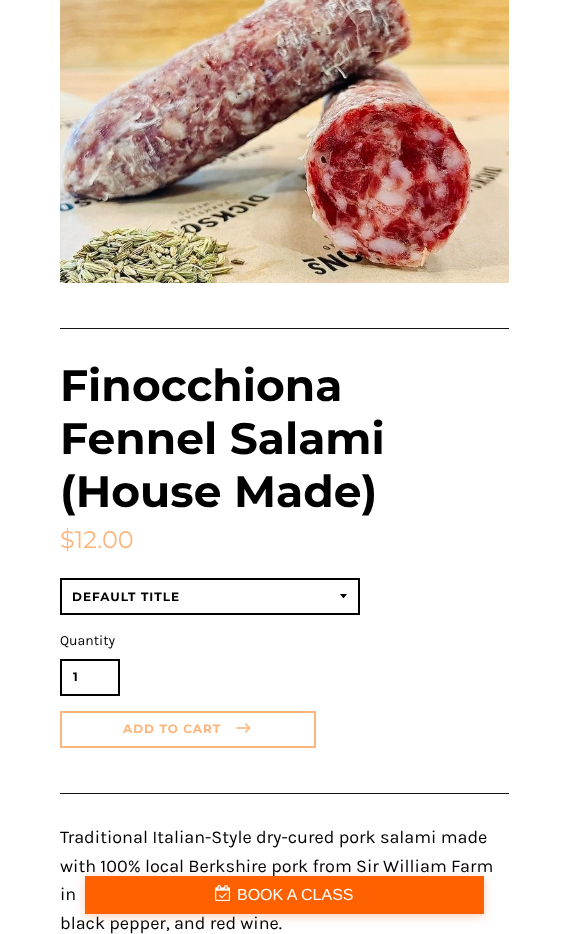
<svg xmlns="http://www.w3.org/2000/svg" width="569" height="934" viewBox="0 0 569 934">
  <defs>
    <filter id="blur1" x="-50%" y="-200%" width="200%" height="500%"><feGaussianBlur stdDeviation="5"/></filter>
  </defs>
  <rect width="100%" height="100%" fill="#ffffff"/>
  <image x="60" y="0" width="449" height="283" href="img1.png"/>
  <rect x="60" y="328" width="449" height="1" fill="#141414"/>
  <text x="60" y="401" font-family="Montserrat" font-size="44" font-weight="bold" fill="#000000">Finocchiona</text>
  <text x="60" y="454" font-family="Montserrat" font-size="44" font-weight="bold" fill="#000000">Fennel Salami</text>
  <text x="60" y="507" font-family="Montserrat" font-size="44" font-weight="bold" fill="#000000">(House Made)</text>
  <text x="60" y="548" font-family="Montserrat" font-size="24" fill="#fdb57b">$12.00</text>
  <path d="M340 594C344.5 599.5 342.5 599.5 347 594Z" fill="#000000"/>
  <rect x="61" y="579" width="298" height="35" fill="none" stroke="#000000" stroke-width="2"/>
  <text x="72" y="601" font-family="Montserrat" font-size="12" font-weight="bold" letter-spacing="1" fill="#000000">DEFAULT TITLE</text>
  <text x="60" y="645" font-family="Karla" font-size="14" fill="#000000">Quantity</text>
  <rect x="61" y="660" width="58" height="35" fill="none" stroke="#000000" stroke-width="2"/>
  <text x="73" y="681" font-family="Montserrat" font-size="12" font-weight="bold" letter-spacing="1" fill="#000000">1</text>
  <rect x="61" y="712" width="254" height="35" fill="none" stroke="#fdb57b" stroke-width="2"/>
  <text x="123" y="733" font-family="Montserrat" font-size="12" font-weight="bold" letter-spacing="1" fill="#fdb57b">ADD TO CART</text>
  <image x="236" y="723" width="15" height="10" href="img2.png"/>
  <rect x="60" y="793" width="449" height="1" fill="#141414"/>
  <text x="60" y="843" font-family="Karla" font-size="18" fill="#000000">Traditional Italian-Style dry-cured pork salami made</text>
  <text x="60" y="872" font-family="Karla" font-size="18" fill="#000000">with 100% local Berkshire pork from Sir William Farm</text>
  <text x="60" y="900" font-family="Karla" font-size="18" fill="#000000">in</text>
  <text x="60" y="929" font-family="Karla" font-size="18" fill="#000000">black pepper, and red wine.</text>
  <rect x="85" y="878" width="399" height="38" fill="#ff6000" fill-opacity="0.3" filter="url(#blur1)"/>
  <rect x="85" y="876" width="399" height="38" fill="#ff6000"/>
  <image x="215" y="885" width="15" height="16" href="img3.png"/>
  <text x="237" y="900" font-family="Liberation Sans" font-size="16" fill="#ffffff">BOOK A CLASS</text>
</svg>
